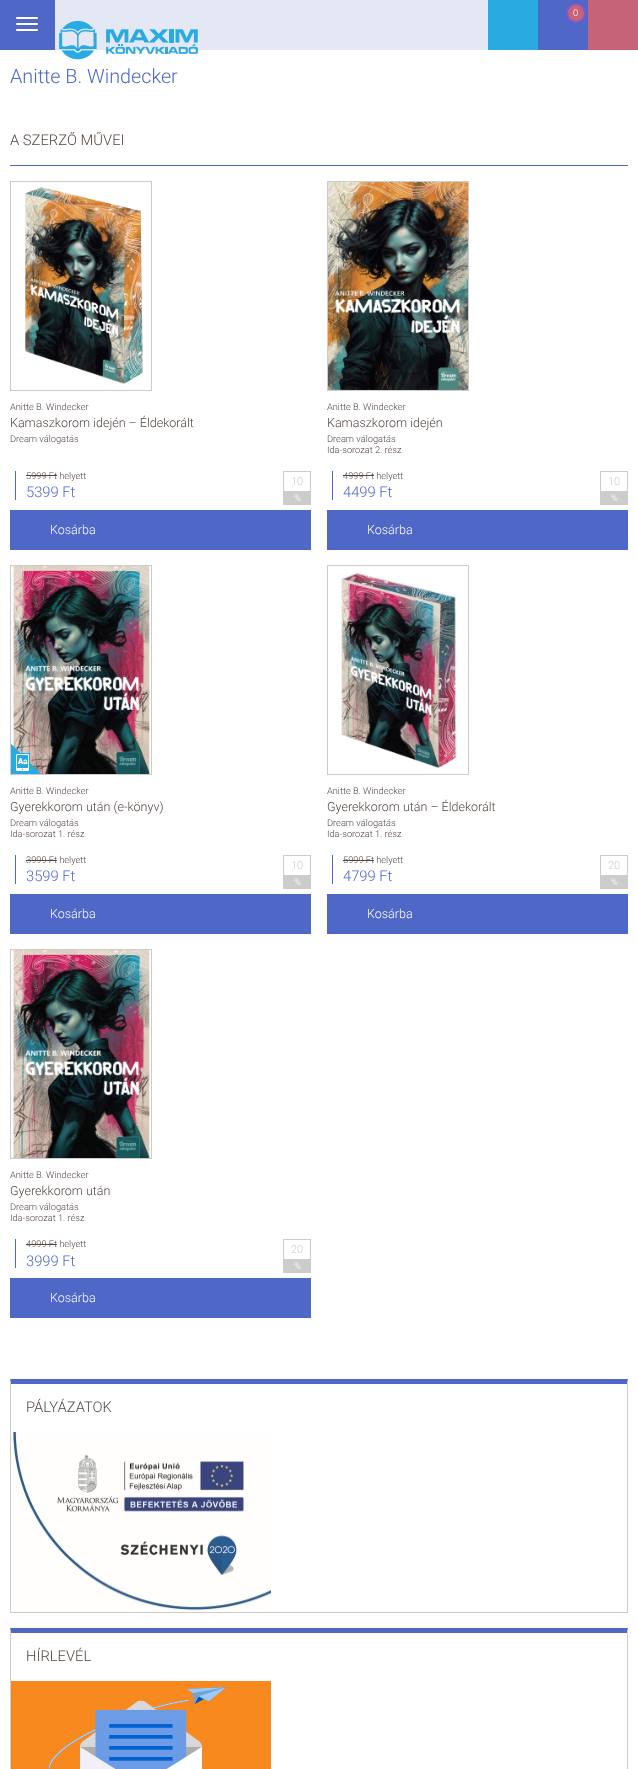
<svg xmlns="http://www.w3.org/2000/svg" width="638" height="1769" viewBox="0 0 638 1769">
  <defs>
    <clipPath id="clip1"><rect x="10" y="132" width="618" height="1247"/></clipPath>
  </defs>
  <rect width="100%" height="100%" fill="#ffffff"/>
  <rect x="0" y="0" width="55" height="50" fill="#4f67c6"/>
  <rect x="16" y="17" width="22" height="2" rx="1" fill="#ffffff"/>
  <rect x="16" y="23" width="22" height="2" rx="1" fill="#ffffff"/>
  <rect x="16" y="29" width="22" height="2" rx="1" fill="#ffffff"/>
  <rect x="55" y="0" width="433" height="50" fill="#e4e8f5"/>
  <rect x="488" y="0" width="50" height="50" fill="#29abe2"/>
  <rect x="538" y="0" width="50" height="50" fill="#4f67c6"/>
  <circle cx="576" cy="13" r="9" fill="#c76379" stroke="#7f5ac7" stroke-width="2"/>
  <text x="573" y="16" font-family="Roboto" font-size="9.25" font-weight="300" fill="#ffffff">0</text>
  <rect x="588" y="0" width="50" height="50" fill="#c76379"/>
  <image x="59" y="20" width="139" height="40" href="img1.png"/>
  <text x="10" y="83" font-family="Roboto" font-size="19.75" font-weight="300" fill="#4f67c6">Anitte B. Windecker</text>
  <g clip-path="url(#clip1)">
    <text x="10" y="145" font-family="Roboto" font-size="14.75" font-weight="300" fill="#534741">A SZERZŐ MŰVEI</text>
  </g>
  <rect x="10" y="165" width="618" height="1" fill="#4f67c6"/>
  <rect x="10.5" y="181.5" width="141" height="209" fill="none" stroke="#cccccc"/>
  <image x="25" y="187" width="118" height="197" href="img2.png"/>
  <text x="10" y="410" font-family="Roboto" font-size="9.25" font-weight="300" fill="#534741">Anitte B. Windecker</text>
  <text x="10" y="427" font-family="Roboto" font-size="12.5" font-weight="300" fill="#534741">Kamaszkorom idején – Éldekorált</text>
  <text x="10" y="442" font-family="Roboto" font-size="9.25" font-weight="300" fill="#534741">Dream válogatás</text>
  <rect x="15" y="471" width="1" height="29" fill="#4f67c6"/>
  <text x="26" y="479" font-family="Roboto" font-size="9.25" font-weight="300" fill="#534741">5999 Ft helyett</text>
  <rect x="26" y="475" width="31" height="1" fill="#534741"/>
  <rect x="283.5" y="471.5" width="27" height="33" fill="none" stroke="#cccccc"/>
  <text x="291" y="485" font-family="Roboto" font-size="11" font-weight="300" fill="#cccccc">10</text>
  <rect x="284" y="491" width="26" height="13" fill="#cccccc"/>
  <text x="294" y="501" font-family="Roboto" font-size="9.25" font-weight="300" fill="#ffffff">%</text>
  <text x="26" y="497" font-family="Roboto" font-size="14.75" font-weight="300" fill="#4f67c6">5399 Ft</text>
  <rect x="10" y="510" width="301" height="40" fill="#4f67c6"/>
  <text x="50" y="534" font-family="Roboto" font-size="12.5" font-weight="300" fill="#ffffff">Kosárba</text>
  <rect x="327.5" y="181.5" width="141" height="209" fill="none" stroke="#cccccc"/>
  <image x="328" y="182" width="140" height="208" href="img3.png"/>
  <text x="327" y="410" font-family="Roboto" font-size="9.25" font-weight="300" fill="#534741">Anitte B. Windecker</text>
  <text x="327" y="427" font-family="Roboto" font-size="12.5" font-weight="300" fill="#534741">Kamaszkorom idején</text>
  <text x="327" y="442" font-family="Roboto" font-size="9.25" font-weight="300" fill="#534741">Dream válogatás</text>
  <text x="327" y="453" font-family="Roboto" font-size="9.25" font-weight="300" fill="#534741">Ida-sorozat 2. rész</text>
  <rect x="332" y="471" width="1" height="29" fill="#4f67c6"/>
  <text x="343" y="479" font-family="Roboto" font-size="9.25" font-weight="300" fill="#534741">4999 Ft helyett</text>
  <rect x="343" y="475" width="31" height="1" fill="#534741"/>
  <rect x="600.5" y="471.5" width="27" height="33" fill="none" stroke="#cccccc"/>
  <text x="608" y="485" font-family="Roboto" font-size="11" font-weight="300" fill="#cccccc">10</text>
  <rect x="601" y="491" width="26" height="13" fill="#cccccc"/>
  <text x="611" y="501" font-family="Roboto" font-size="9.25" font-weight="300" fill="#ffffff">%</text>
  <text x="343" y="497" font-family="Roboto" font-size="14.75" font-weight="300" fill="#4f67c6">4499 Ft</text>
  <rect x="327" y="510" width="301" height="40" fill="#4f67c6"/>
  <text x="367" y="534" font-family="Roboto" font-size="12.5" font-weight="300" fill="#ffffff">Kosárba</text>
  <rect x="10.5" y="565.5" width="141" height="209" fill="none" stroke="#cccccc"/>
  <image x="11" y="566" width="140" height="208" href="img4.png"/>
  <image x="11" y="744" width="30" height="30" href="img5.png"/>
  <text x="10" y="794" font-family="Roboto" font-size="9.25" font-weight="300" fill="#534741">Anitte B. Windecker</text>
  <text x="10" y="811" font-family="Roboto" font-size="12.5" font-weight="300" fill="#534741">Gyerekkorom után (e-könyv)</text>
  <text x="10" y="826" font-family="Roboto" font-size="9.25" font-weight="300" fill="#534741">Dream válogatás</text>
  <text x="10" y="837" font-family="Roboto" font-size="9.25" font-weight="300" fill="#534741">Ida-sorozat 1. rész</text>
  <rect x="15" y="855" width="1" height="29" fill="#4f67c6"/>
  <text x="26" y="863" font-family="Roboto" font-size="9.25" font-weight="300" fill="#534741">3999 Ft helyett</text>
  <rect x="26" y="860" width="31" height="1" fill="#534741"/>
  <rect x="283.5" y="855.5" width="27" height="33" fill="none" stroke="#cccccc"/>
  <text x="291" y="869" font-family="Roboto" font-size="11" font-weight="300" fill="#cccccc">10</text>
  <rect x="284" y="875" width="26" height="13" fill="#cccccc"/>
  <text x="294" y="885" font-family="Roboto" font-size="9.25" font-weight="300" fill="#ffffff">%</text>
  <text x="26" y="881" font-family="Roboto" font-size="14.75" font-weight="300" fill="#4f67c6">3599 Ft</text>
  <rect x="10" y="894" width="301" height="40" fill="#4f67c6"/>
  <text x="50" y="918" font-family="Roboto" font-size="12.5" font-weight="300" fill="#ffffff">Kosárba</text>
  <rect x="327.5" y="565.5" width="141" height="209" fill="none" stroke="#cccccc"/>
  <image x="341" y="573" width="116" height="195" href="img6.png"/>
  <text x="327" y="794" font-family="Roboto" font-size="9.25" font-weight="300" fill="#534741">Anitte B. Windecker</text>
  <text x="327" y="811" font-family="Roboto" font-size="12.5" font-weight="300" fill="#534741">Gyerekkorom után – Éldekorált</text>
  <text x="327" y="826" font-family="Roboto" font-size="9.25" font-weight="300" fill="#534741">Dream válogatás</text>
  <text x="327" y="837" font-family="Roboto" font-size="9.25" font-weight="300" fill="#534741">Ida-sorozat 1. rész</text>
  <rect x="332" y="855" width="1" height="29" fill="#4f67c6"/>
  <text x="343" y="863" font-family="Roboto" font-size="9.25" font-weight="300" fill="#534741">5999 Ft helyett</text>
  <rect x="343" y="860" width="31" height="1" fill="#534741"/>
  <rect x="600.5" y="855.5" width="27" height="33" fill="none" stroke="#cccccc"/>
  <text x="608" y="869" font-family="Roboto" font-size="11" font-weight="300" fill="#cccccc">20</text>
  <rect x="601" y="875" width="26" height="13" fill="#cccccc"/>
  <text x="611" y="885" font-family="Roboto" font-size="9.25" font-weight="300" fill="#ffffff">%</text>
  <text x="343" y="881" font-family="Roboto" font-size="14.75" font-weight="300" fill="#4f67c6">4799 Ft</text>
  <rect x="327" y="894" width="301" height="40" fill="#4f67c6"/>
  <text x="367" y="918" font-family="Roboto" font-size="12.5" font-weight="300" fill="#ffffff">Kosárba</text>
  <rect x="10.5" y="949.5" width="141" height="209" fill="none" stroke="#cccccc"/>
  <image x="11" y="950" width="140" height="208" href="img7.png"/>
  <text x="10" y="1178" font-family="Roboto" font-size="9.25" font-weight="300" fill="#534741">Anitte B. Windecker</text>
  <text x="10" y="1195" font-family="Roboto" font-size="12.5" font-weight="300" fill="#534741">Gyerekkorom után</text>
  <text x="10" y="1210" font-family="Roboto" font-size="9.25" font-weight="300" fill="#534741">Dream válogatás</text>
  <text x="10" y="1221" font-family="Roboto" font-size="9.25" font-weight="300" fill="#534741">Ida-sorozat 1. rész</text>
  <rect x="15" y="1239" width="1" height="29" fill="#4f67c6"/>
  <text x="26" y="1247" font-family="Roboto" font-size="9.25" font-weight="300" fill="#534741">4999 Ft helyett</text>
  <rect x="26" y="1244" width="31" height="1" fill="#534741"/>
  <rect x="283.5" y="1239.5" width="27" height="33" fill="none" stroke="#cccccc"/>
  <text x="291" y="1253" font-family="Roboto" font-size="11" font-weight="300" fill="#cccccc">20</text>
  <rect x="284" y="1259" width="26" height="13" fill="#cccccc"/>
  <text x="294" y="1269" font-family="Roboto" font-size="9.25" font-weight="300" fill="#ffffff">%</text>
  <text x="26" y="1266" font-family="Roboto" font-size="14.75" font-weight="300" fill="#4f67c6">3999 Ft</text>
  <rect x="10" y="1278" width="301" height="40" fill="#4f67c6"/>
  <text x="50" y="1302" font-family="Roboto" font-size="12.5" font-weight="300" fill="#ffffff">Kosárba</text>
  <path d="M10 1379H628L627 1384H11Z" fill="#4f67c6"/>
  <path d="M628 1379V1613L627 1612V1384Z" fill="#cccccc"/>
  <rect x="10" y="1612" width="618" height="1" fill="#cccccc"/>
  <path d="M10 1613V1379L11 1384V1612Z" fill="#cccccc"/>
  <text x="26" y="1412" font-family="Roboto" font-size="14.75" font-weight="300" fill="#534741">PÁLYÁZATOK</text>
  <image x="11" y="1432" width="260" height="180" href="img8.png"/>
  <path d="M10 1628H628L627 1633H11Z" fill="#4f67c6"/>
  <path d="M628 1628V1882L627 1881V1633Z" fill="#cccccc"/>
  <path d="M10 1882V1628L11 1633V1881Z" fill="#cccccc"/>
  <text x="26" y="1661" font-family="Roboto" font-size="14.75" font-weight="300" fill="#534741">HÍRLEVÉL</text>
  <image x="11" y="1681" width="260" height="88" href="img9.png"/>
</svg>
